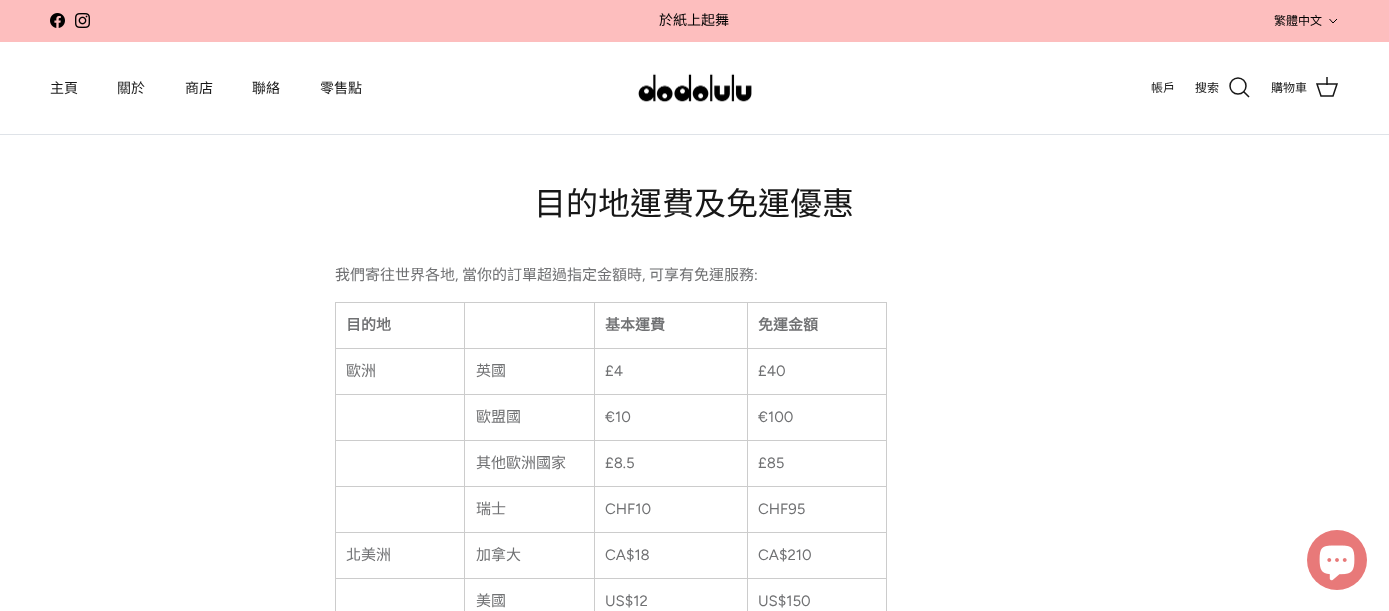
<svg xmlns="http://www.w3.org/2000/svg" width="1389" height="611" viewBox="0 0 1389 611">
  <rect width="100%" height="100%" fill="#ffffff"/>
  <rect x="0" y="0" width="1389" height="42" fill="#fdbebe"/>
  <image x="50" y="13" width="15" height="15" href="img1.png"/>
  <image x="75" y="13" width="15" height="15" href="img2.png"/>
  <text x="659" y="25" font-family="Noto Sans CJK TC" font-size="14" fill="#000000">於紙上起舞</text>
  <text x="1274" y="25" font-family="Noto Sans CJK TC" font-size="12" fill="#000000">繁體中文</text>
  <path d="M1337 19L1333 23L1329.5 19" fill="none" stroke="#000000"/>
  <rect x="0" y="134" width="1389" height="1" fill="#dfe3e8"/>
  <text x="50" y="93" font-family="Noto Sans CJK TC" font-size="14" fill="#171717">主頁</text>
  <text x="117" y="93" font-family="Noto Sans CJK TC" font-size="14" fill="#171717">關於</text>
  <text x="185" y="93" font-family="Noto Sans CJK TC" font-size="14" fill="#171717">商店</text>
  <text x="252" y="93" font-family="Noto Sans CJK TC" font-size="14" fill="#171717">聯絡</text>
  <text x="320" y="93" font-family="Noto Sans CJK TC" font-size="14" fill="#171717">零售點</text>
  <image x="638" y="73" width="114" height="30" href="img3.png"/>
  <text x="1151" y="92" font-family="Noto Sans CJK TC" font-size="12" fill="#171717">帳戶</text>
  <text x="1195" y="92" font-family="Noto Sans CJK TC" font-size="12" fill="#171717">搜索</text>
  <circle cx="1238" cy="86" r="8" fill="none" stroke="#171717" stroke-width="1.5"/>
  <path d="M1244 92L1248.5 96.5" fill="none" stroke="#171717" stroke-width="1.5" stroke-linecap="square"/>
  <text x="1271" y="92" font-family="Noto Sans CJK TC" font-size="12" fill="#171717">購物車</text>
  <path d="M1317 84H1337L1333 96H1321Z" fill="none" stroke="#171717" stroke-width="1.5"/>
  <rect x="1326" y="77" width="2" height="8" fill="#171717" fill-opacity="0.75"/>
  <text x="534" y="215" font-family="Noto Sans CJK TC" font-size="32" fill="#171717">目的地運費及免運優惠</text>
  <text x="335" y="280" font-family="Noto Sans CJK TC" font-size="15" fill="#707173">我們寄往世界各地</text>
  <text x="455" y="280" font-family="Figtree" font-size="15" fill="#707173">,</text>
  <text x="462" y="280" font-family="Noto Sans CJK TC" font-size="15" fill="#707173">當你的訂單超過指定金額時</text>
  <text x="642" y="280" font-family="Figtree" font-size="15" fill="#707173">,</text>
  <text x="649" y="280" font-family="Noto Sans CJK TC" font-size="15" fill="#707173">可享有免運服務</text>
  <text x="754" y="280" font-family="Figtree" font-size="15" fill="#707173">:</text>
  <rect x="747" y="302" width="140" height="1" fill="#cccccc"/>
  <rect x="747" y="348" width="140" height="1" fill="#cccccc"/>
  <rect x="747" y="394" width="140" height="1" fill="#cccccc"/>
  <rect x="747" y="440" width="140" height="1" fill="#cccccc"/>
  <rect x="747" y="486" width="140" height="1" fill="#cccccc"/>
  <rect x="747" y="532" width="140" height="1" fill="#cccccc"/>
  <rect x="747" y="578" width="140" height="1" fill="#cccccc"/>
  <rect x="747" y="578" width="1" height="33" fill="#cccccc"/>
  <rect x="594" y="578" width="154" height="1" fill="#cccccc"/>
  <rect x="747" y="532" width="1" height="47" fill="#cccccc"/>
  <rect x="594" y="532" width="154" height="1" fill="#cccccc"/>
  <rect x="747" y="486" width="1" height="47" fill="#cccccc"/>
  <rect x="594" y="486" width="154" height="1" fill="#cccccc"/>
  <rect x="747" y="440" width="1" height="47" fill="#cccccc"/>
  <rect x="594" y="440" width="154" height="1" fill="#cccccc"/>
  <rect x="747" y="394" width="1" height="47" fill="#cccccc"/>
  <rect x="594" y="394" width="154" height="1" fill="#cccccc"/>
  <rect x="747" y="348" width="1" height="47" fill="#cccccc"/>
  <rect x="594" y="348" width="154" height="1" fill="#cccccc"/>
  <rect x="747" y="302" width="1" height="47" fill="#cccccc"/>
  <rect x="594" y="302" width="154" height="1" fill="#cccccc"/>
  <rect x="594" y="578" width="1" height="33" fill="#cccccc"/>
  <rect x="464" y="578" width="131" height="1" fill="#cccccc"/>
  <rect x="594" y="532" width="1" height="47" fill="#cccccc"/>
  <rect x="464" y="532" width="131" height="1" fill="#cccccc"/>
  <rect x="594" y="486" width="1" height="47" fill="#cccccc"/>
  <rect x="464" y="486" width="131" height="1" fill="#cccccc"/>
  <rect x="594" y="440" width="1" height="47" fill="#cccccc"/>
  <rect x="464" y="440" width="131" height="1" fill="#cccccc"/>
  <rect x="594" y="394" width="1" height="47" fill="#cccccc"/>
  <rect x="464" y="394" width="131" height="1" fill="#cccccc"/>
  <rect x="594" y="348" width="1" height="47" fill="#cccccc"/>
  <rect x="464" y="348" width="131" height="1" fill="#cccccc"/>
  <rect x="594" y="302" width="1" height="47" fill="#cccccc"/>
  <rect x="464" y="302" width="131" height="1" fill="#cccccc"/>
  <rect x="464" y="578" width="1" height="33" fill="#cccccc"/>
  <rect x="335" y="578" width="130" height="1" fill="#cccccc"/>
  <rect x="464" y="532" width="1" height="47" fill="#cccccc"/>
  <rect x="335" y="532" width="130" height="1" fill="#cccccc"/>
  <rect x="464" y="486" width="1" height="47" fill="#cccccc"/>
  <rect x="335" y="486" width="130" height="1" fill="#cccccc"/>
  <rect x="464" y="440" width="1" height="47" fill="#cccccc"/>
  <rect x="335" y="440" width="130" height="1" fill="#cccccc"/>
  <rect x="464" y="394" width="1" height="47" fill="#cccccc"/>
  <rect x="335" y="394" width="130" height="1" fill="#cccccc"/>
  <rect x="464" y="348" width="1" height="47" fill="#cccccc"/>
  <rect x="335" y="348" width="130" height="1" fill="#cccccc"/>
  <rect x="464" y="302" width="1" height="47" fill="#cccccc"/>
  <rect x="335" y="302" width="130" height="1" fill="#cccccc"/>
  <rect x="335" y="578" width="1" height="33" fill="#cccccc"/>
  <rect x="335" y="532" width="1" height="47" fill="#cccccc"/>
  <rect x="335" y="486" width="1" height="47" fill="#cccccc"/>
  <rect x="335" y="440" width="1" height="47" fill="#cccccc"/>
  <rect x="335" y="394" width="1" height="47" fill="#cccccc"/>
  <rect x="335" y="348" width="1" height="47" fill="#cccccc"/>
  <rect x="335" y="302" width="1" height="47" fill="#cccccc"/>
  <text x="346" y="330" font-family="Noto Sans CJK TC" font-size="15" font-weight="bold" fill="#707173">目的地</text>
  <text x="605" y="330" font-family="Noto Sans CJK TC" font-size="15" font-weight="bold" fill="#707173">基本運費</text>
  <rect x="886" y="578" width="1" height="33" fill="#cccccc"/>
  <rect x="886" y="532" width="1" height="47" fill="#cccccc"/>
  <rect x="886" y="486" width="1" height="47" fill="#cccccc"/>
  <rect x="886" y="440" width="1" height="47" fill="#cccccc"/>
  <rect x="886" y="394" width="1" height="47" fill="#cccccc"/>
  <rect x="886" y="348" width="1" height="47" fill="#cccccc"/>
  <rect x="886" y="302" width="1" height="47" fill="#cccccc"/>
  <text x="758" y="330" font-family="Noto Sans CJK TC" font-size="15" font-weight="bold" fill="#707173">免運金額</text>
  <text x="346" y="376" font-family="Noto Sans CJK TC" font-size="15" fill="#707173">歐洲</text>
  <text x="476" y="376" font-family="Noto Sans CJK TC" font-size="15" fill="#707173">英國</text>
  <text x="605" y="376" font-family="Figtree" font-size="15" fill="#707173">£4</text>
  <text x="758" y="376" font-family="Figtree" font-size="15" fill="#707173">£40</text>
  <text x="476" y="422" font-family="Noto Sans CJK TC" font-size="15" fill="#707173">歐盟國</text>
  <text x="605" y="422" font-family="Figtree" font-size="15" fill="#707173">€10</text>
  <text x="758" y="422" font-family="Figtree" font-size="15" fill="#707173">€100</text>
  <text x="476" y="468" font-family="Noto Sans CJK TC" font-size="15" fill="#707173">其他歐洲國家</text>
  <text x="605" y="468" font-family="Figtree" font-size="15" fill="#707173">£8.5</text>
  <text x="758" y="468" font-family="Figtree" font-size="15" fill="#707173">£85</text>
  <text x="476" y="514" font-family="Noto Sans CJK TC" font-size="15" fill="#707173">瑞士</text>
  <text x="605" y="514" font-family="Figtree" font-size="15" fill="#707173">CHF10</text>
  <text x="758" y="514" font-family="Figtree" font-size="15" fill="#707173">CHF95</text>
  <text x="346" y="560" font-family="Noto Sans CJK TC" font-size="15" fill="#707173">北美洲</text>
  <text x="476" y="560" font-family="Noto Sans CJK TC" font-size="15" fill="#707173">加拿大</text>
  <text x="605" y="560" font-family="Figtree" font-size="15" fill="#707173">CA$18</text>
  <text x="758" y="560" font-family="Figtree" font-size="15" fill="#707173">CA$210</text>
  <text x="476" y="606" font-family="Noto Sans CJK TC" font-size="15" fill="#707173">美國</text>
  <text x="605" y="606" font-family="Figtree" font-size="15" fill="#707173">US$12</text>
  <text x="758" y="606" font-family="Figtree" font-size="15" fill="#707173">US$150</text>
  <circle cx="1337" cy="560" r="30" fill="#e87979"/>
  <image x="1319" y="545" width="36" height="36" href="img4.png"/>
</svg>
